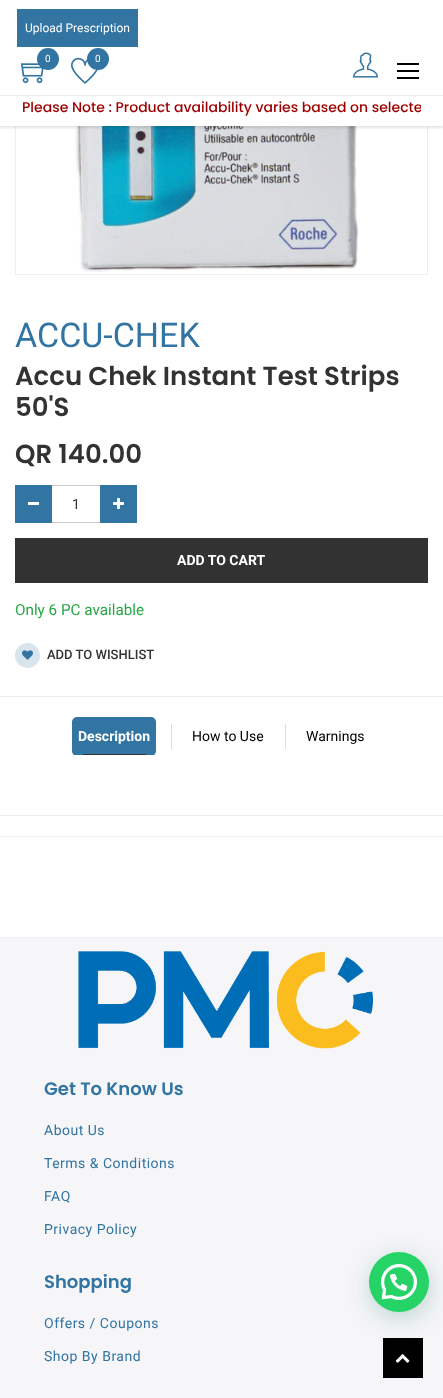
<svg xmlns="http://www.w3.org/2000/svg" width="443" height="1398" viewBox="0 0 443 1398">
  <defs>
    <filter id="blur1" x="-50%" y="-200%" width="200%" height="500%"><feGaussianBlur stdDeviation="1"/></filter>
    <clipPath id="clip1"><rect x="22" y="96" width="399" height="23"/></clipPath>
    <clipPath id="clip2"><rect x="15" y="717" width="413" height="38"/></clipPath>
    <filter id="blur2" x="-50%" y="-200%" width="200%" height="500%"><feGaussianBlur stdDeviation="12"/></filter>
  </defs>
  <rect width="100%" height="100%" fill="#ffffff"/>
  <rect x="15.5" y="-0.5" width="412" height="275" fill="none" stroke="#eeeeee"/>
  <image x="18" y="126" width="341" height="146" href="img4.png"/>
  <rect x="0" y="-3" width="443" height="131" fill="#000000" fill-opacity="0.1" filter="url(#blur1)"/>
  <rect x="0" y="0" width="443" height="126" fill="#ffffff"/>
  <rect x="17" y="9" width="121" height="38" fill="#3274a2"/>
  <text x="25" y="32" font-family="Roboto" font-size="12" fill="#ffffff">Upload Prescription</text>
  <image x="20" y="63" width="24" height="21" href="img1.png"/>
  <circle cx="48" cy="59" r="11" fill="#3274a2"/>
  <text x="45" y="62" font-family="Roboto" font-size="10" fill="#ffffff">0</text>
  <image x="71" y="57" width="27" height="27" href="img2.png"/>
  <circle cx="98" cy="59" r="11" fill="#3274a2"/>
  <text x="95" y="62" font-family="Roboto" font-size="10" fill="#ffffff">0</text>
  <image x="353" y="52" width="25" height="26" href="img3.png"/>
  <rect x="397" y="63" width="22" height="2" fill="#000000"/>
  <rect x="397" y="77" width="22" height="2" fill="#000000"/>
  <rect x="397" y="70" width="22" height="2" fill="#000000"/>
  <rect x="0" y="95" width="443" height="1" fill="#eeeeee"/>
  <g clip-path="url(#clip1)">
    <text x="22" y="112" font-family="Poppins" font-size="14" font-weight="500" fill="#9c0000">Please Note : Product availability varies based on selecte</text>
  </g>
  <text x="15" y="347" font-family="Roboto" font-size="34" fill="#3274a2">ACCU-CHEK</text>
  <text x="15" y="385" font-family="Poppins" font-size="26" font-weight="600" fill="#323232">Accu Chek Instant Test Strips</text>
  <text x="15" y="416" font-family="Poppins" font-size="26" font-weight="600" fill="#323232">50'S</text>
  <text x="15" y="463" font-family="Poppins" font-size="26" font-weight="600" fill="#323232">QR 140.00</text>
  <rect x="51.5" y="485.5" width="49" height="37" fill="none" stroke="#cccccc"/>
  <rect x="15" y="485" width="37" height="38" fill="#3274a2"/>
  <rect x="28" y="502" width="11" height="3" fill="#ffffff"/>
  <text x="72" y="509" font-family="Roboto" font-size="14" fill="#323232">1</text>
  <rect x="100" y="485" width="37" height="38" fill="#3274a2"/>
  <image x="113" y="498" width="11" height="11" href="img5.png"/>
  <rect x="15" y="538" width="413" height="45" fill="#323232"/>
  <text x="177" y="565" font-family="Roboto" font-size="14" font-weight="bold" fill="#ffffff">ADD TO CART</text>
  <text x="15" y="615" font-family="Roboto" font-size="15.25" fill="#28a745">Only 6 PC available</text>
  <circle cx="27.5" cy="655.5" r="12.5" fill="#d8e5ed"/>
  <image x="22" y="650" width="11" height="10" href="img6.png"/>
  <text x="47" y="659" font-family="Roboto" font-size="13" font-weight="500" fill="#323232">ADD TO WISHLIST</text>
  <rect x="0" y="696" width="443" height="1" fill="#eeeeee"/>
  <rect x="0" y="815" width="443" height="1" fill="#eeeeee"/>
  <g clip-path="url(#clip2)">
    <rect x="72" y="717" width="84" height="39" rx="5" fill="#3274a2"/>
  </g>
  <text x="78" y="741" font-family="Roboto" font-size="14" font-weight="bold" fill="#ffffff">Description</text>
  <rect x="83" y="754" width="63" height="1" fill="#323232"/>
  <rect x="171" y="724" width="1" height="25" fill="#dddddd"/>
  <text x="192" y="741" font-family="Roboto" font-size="14" fill="#000000">How to Use</text>
  <rect x="285" y="724" width="1" height="25" fill="#dddddd"/>
  <text x="306" y="741" font-family="Roboto" font-size="14" fill="#000000">Warnings</text>
  <rect x="0" y="836" width="443" height="1" fill="#eeeeee"/>
  <rect x="0" y="937" width="443" height="1" fill="#eeeeee"/>
  <rect x="0" y="938" width="443" height="460" fill="#f6f6f8"/>
  <image x="78" y="951" width="295" height="98" href="img7.png"/>
  <text x="44" y="1095" font-family="Poppins" font-size="18" font-weight="600" fill="#3274a2">Get To Know Us</text>
  <text x="44" y="1135" font-family="Roboto" font-size="14" letter-spacing="0.5" fill="#3274a2">About Us</text>
  <text x="44" y="1168" font-family="Roboto" font-size="14" letter-spacing="0.5" fill="#3274a2">Terms &amp; Conditions</text>
  <text x="44" y="1201" font-family="Roboto" font-size="14" letter-spacing="0.5" fill="#3274a2">FAQ</text>
  <text x="44" y="1234" font-family="Roboto" font-size="14" letter-spacing="0.5" fill="#3274a2">Privacy Policy</text>
  <text x="44" y="1288" font-family="Poppins" font-size="18" font-weight="600" fill="#3274a2">Shopping</text>
  <text x="44" y="1328" font-family="Roboto" font-size="14" letter-spacing="0.5" fill="#3274a2">Offers / Coupons</text>
  <text x="44" y="1361" font-family="Roboto" font-size="14" letter-spacing="0.5" fill="#3274a2">Shop By Brand</text>
  <rect x="383" y="1338" width="40" height="40" fill="#000000"/>
  <image x="395" y="1354" width="15" height="9" href="img9.png"/>
  <rect x="370" y="1258" width="60" height="60" rx="30" fill="#075e54" fill-opacity="0.24" filter="url(#blur2)"/>
  <circle cx="399" cy="1282" r="30" fill="#25d366"/>
  <image x="381" y="1264" width="36" height="36" href="img8.png"/>
</svg>
